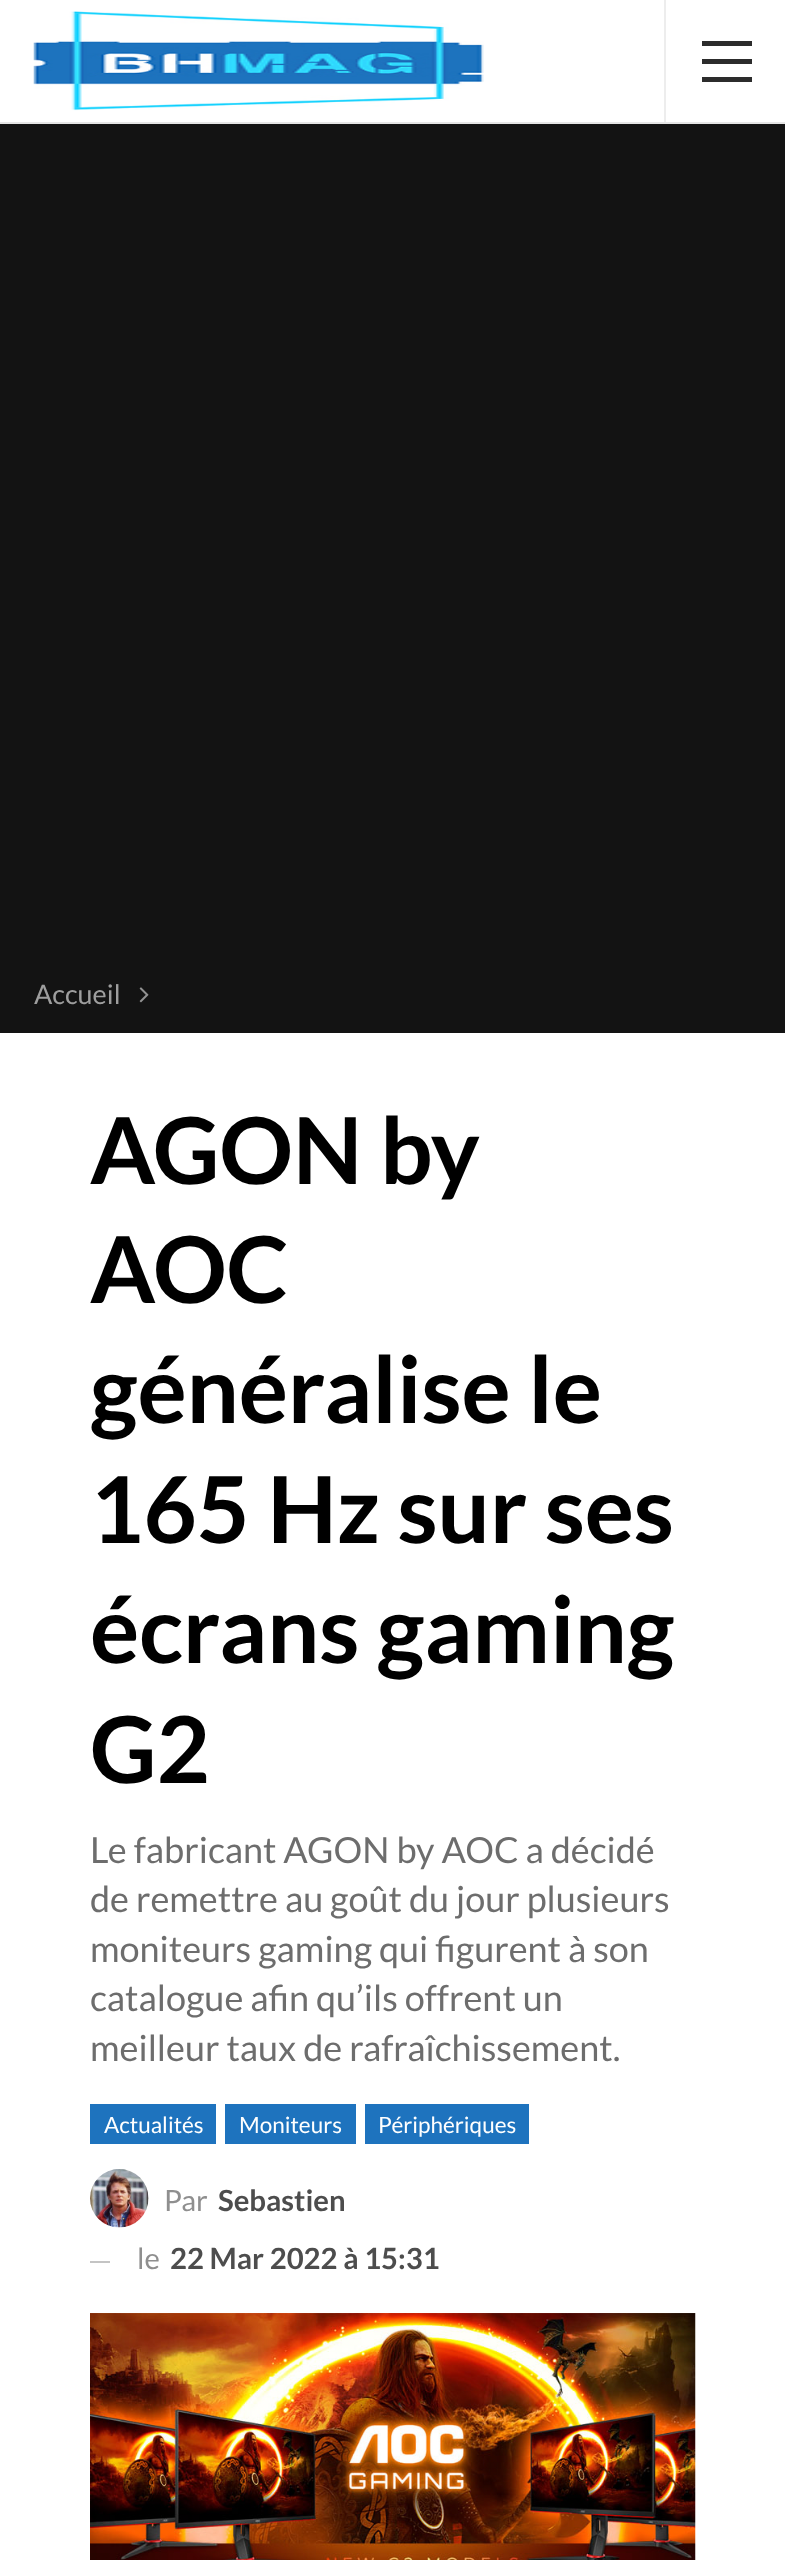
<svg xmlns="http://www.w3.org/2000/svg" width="785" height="2560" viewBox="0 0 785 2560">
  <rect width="100%" height="100%" fill="#131313"/>
  <rect x="0" y="0" width="785" height="122" fill="#ffffff"/>
  <rect x="0" y="122" width="785" height="2" fill="#e5e5e5"/>
  <image x="33" y="11" width="451" height="100" href="img1.png"/>
  <rect x="664" y="0" width="2" height="122" fill="#ededed"/>
  <rect x="702" y="59" width="50" height="5" fill="#2c2c2c"/>
  <rect x="702" y="41" width="50" height="5" fill="#2c2c2c"/>
  <rect x="702" y="77" width="50" height="5" fill="#2c2c2c"/>
  <text x="34" y="1004" font-family="Lato" font-size="27" fill="#9e9e9e">Accueil</text>
  <image x="139" y="987" width="10" height="16" href="img2.png"/>
  <rect x="0" y="1033" width="785" height="1527" fill="#ffffff"/>
  <text x="90" y="1184" font-family="Lato" font-size="92.25" font-weight="bold" letter-spacing="-0.25" fill="#000000">AGON by</text>
  <text x="90" y="1303" font-family="Lato" font-size="92.25" font-weight="bold" letter-spacing="-0.25" fill="#000000">AOC</text>
  <text x="90" y="1423" font-family="Lato" font-size="92.25" font-weight="bold" letter-spacing="-0.25" fill="#000000">généralise le</text>
  <text x="90" y="1543" font-family="Lato" font-size="92.25" font-weight="bold" letter-spacing="-0.25" fill="#000000">165 Hz sur ses</text>
  <text x="90" y="1663" font-family="Lato" font-size="92.25" font-weight="bold" letter-spacing="-0.25" fill="#000000">écrans gaming</text>
  <text x="90" y="1783" font-family="Lato" font-size="92.25" font-weight="bold" letter-spacing="-0.25" fill="#000000">G2</text>
  <text x="90" y="1863" font-family="Lato" font-size="36" fill="#6d6d6d">Le fabricant AGON by AOC a décidé</text>
  <text x="90" y="1912" font-family="Lato" font-size="36" fill="#6d6d6d">de remettre au goût du jour plusieurs</text>
  <text x="90" y="1962" font-family="Lato" font-size="36" fill="#6d6d6d">moniteurs gaming qui figurent à son</text>
  <text x="90" y="2011" font-family="Lato" font-size="36" fill="#6d6d6d">catalogue afin qu’ils offrent un</text>
  <text x="90" y="2061" font-family="Lato" font-size="36" fill="#6d6d6d">meilleur taux de rafraîchissement.</text>
  <rect x="90" y="2104" width="126" height="40" fill="#1e73be"/>
  <text x="104" y="2133" font-family="Lato" font-size="22.5" fill="#ffffff">Actualités</text>
  <rect x="225" y="2104" width="131" height="40" fill="#1e73be"/>
  <text x="239" y="2133" font-family="Lato" font-size="22.5" fill="#ffffff">Moniteurs</text>
  <rect x="365" y="2104" width="164" height="40" fill="#1e73be"/>
  <text x="378" y="2133" font-family="Lato" font-size="22.5" fill="#ffffff">Périphériques</text>
  <image x="90" y="2169" width="59" height="59" href="img3.png"/>
  <text x="164" y="2211" font-family="Lato" font-size="29.25" fill="#8f8f8f">Par</text>
  <text x="218" y="2211" font-family="Lato" font-size="29.25" font-weight="bold" fill="#4d4d4d">Sebastien</text>
  <rect x="90" y="2261" width="20" height="2" fill="#c4c4c4"/>
  <text x="137" y="2269" font-family="Lato" font-size="29.25" fill="#8f8f8f">le</text>
  <text x="170" y="2269" font-family="Lato" font-size="29.25" font-weight="bold" fill="#4d4d4d">22 Mar 2022 à 15:31</text>
  <image x="90" y="2313" width="606" height="247" href="img4.png"/>
</svg>
